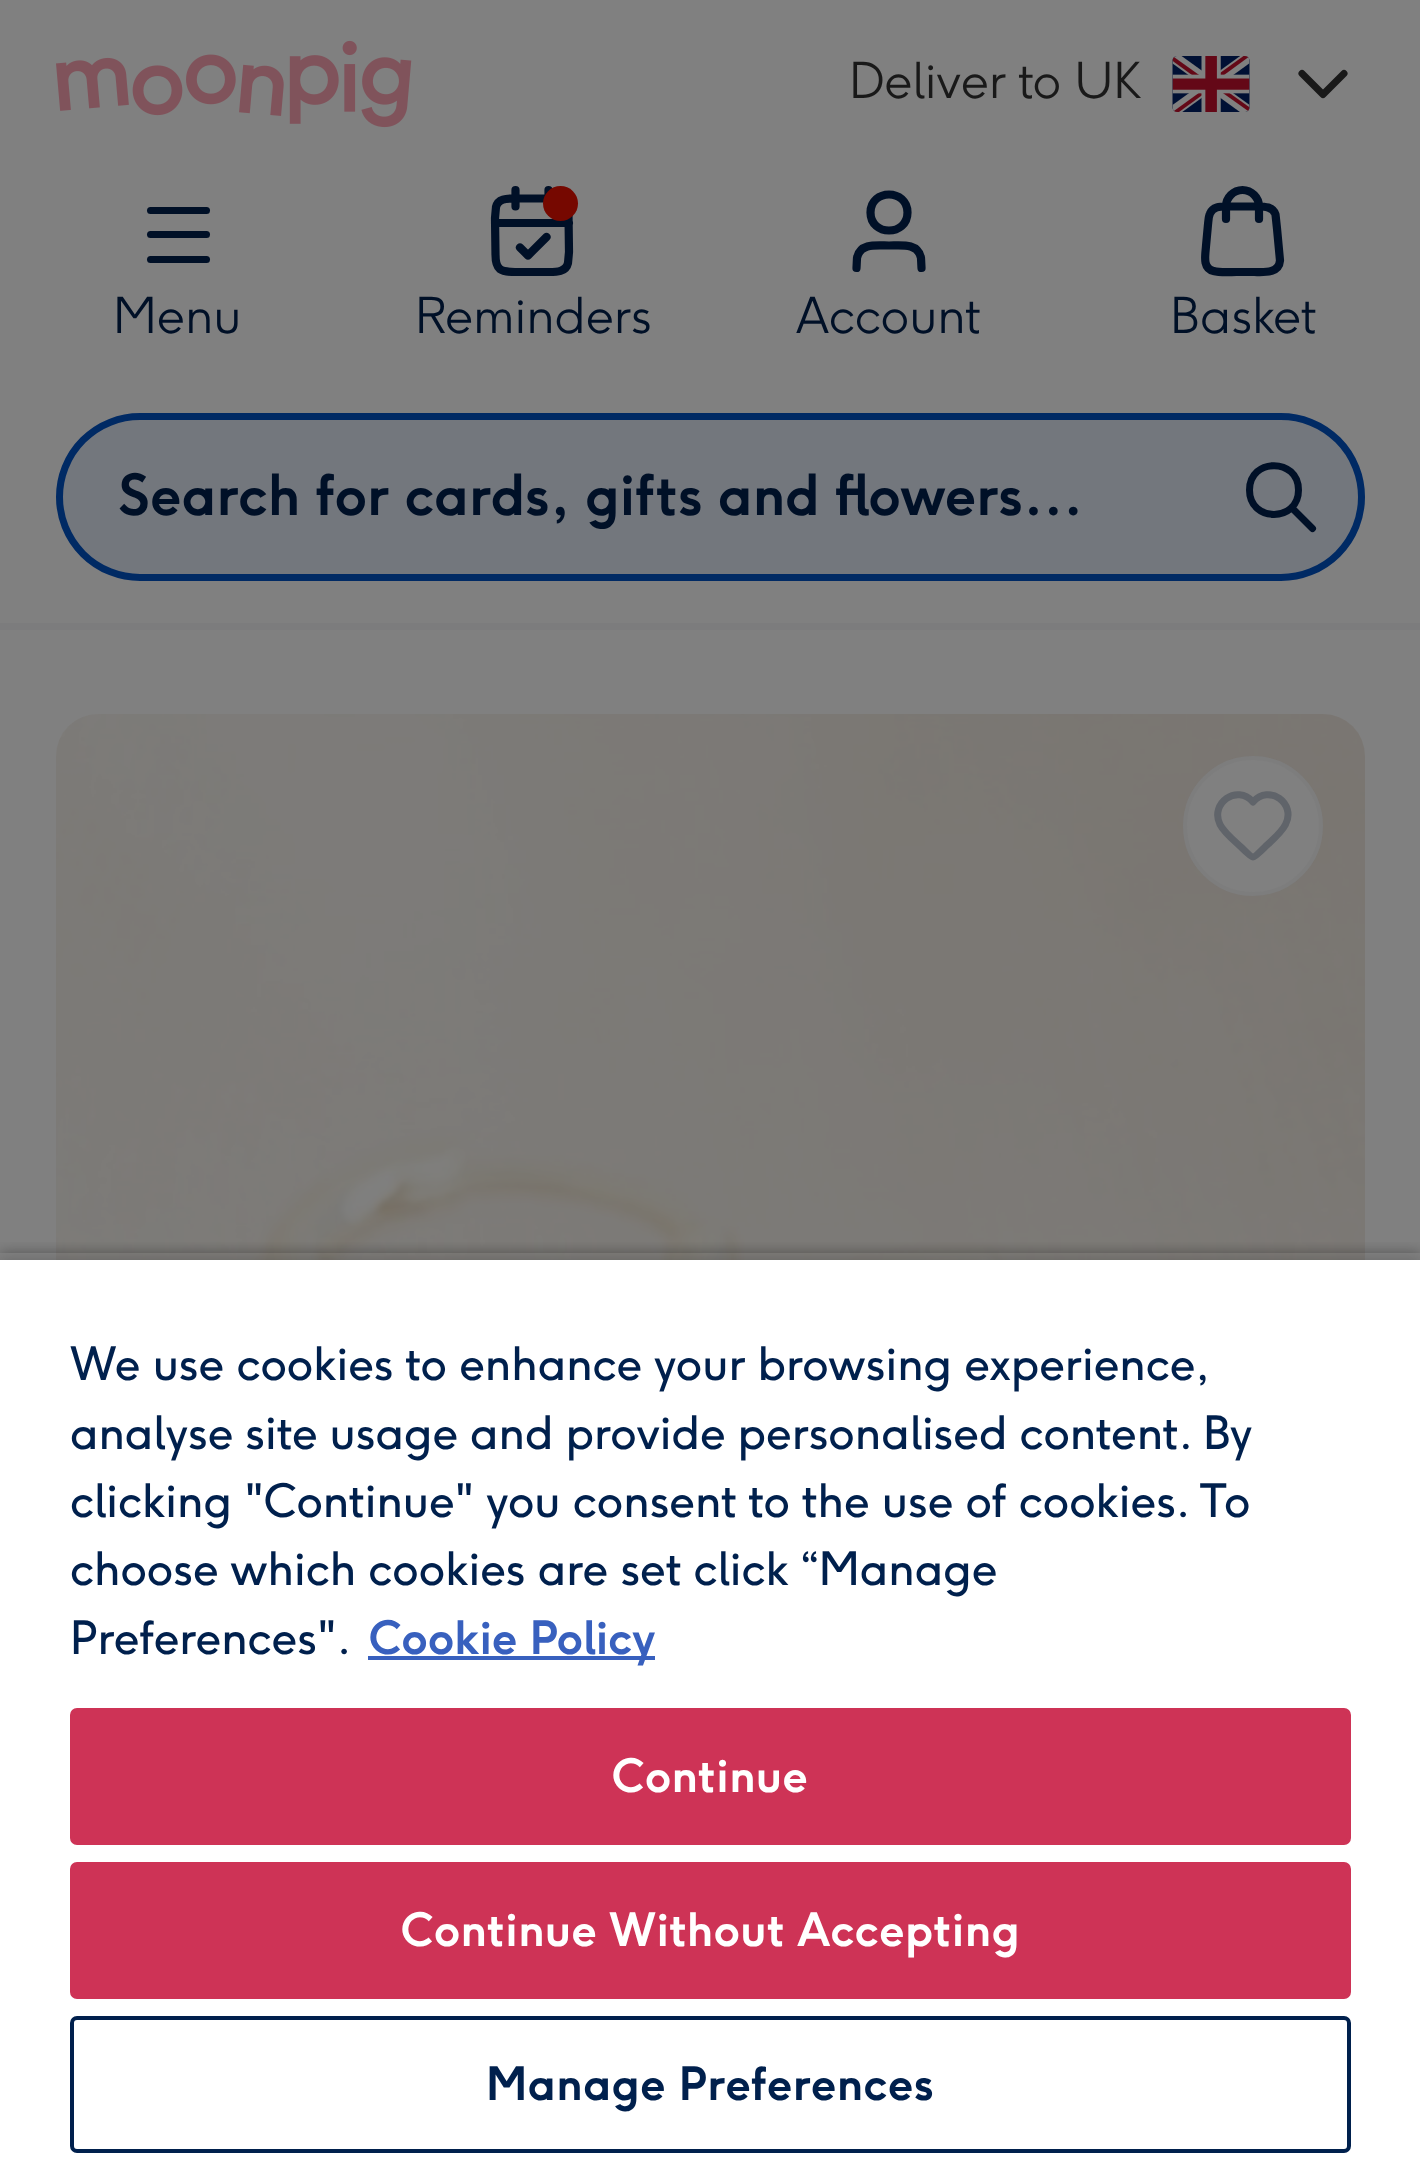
<svg xmlns="http://www.w3.org/2000/svg" width="1420" height="2169" viewBox="0 0 1420 2169">
  <defs>
    <clipPath id="clip1"><rect x="119" y="462" width="1218" height="67"/></clipPath>
    <clipPath id="clip2"><rect x="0" y="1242" width="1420" height="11"/></clipPath>
    <filter id="blur1" x="-50%" y="-200%" width="200%" height="500%"><feGaussianBlur stdDeviation="7"/></filter>
    <clipPath id="clip3"><rect x="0" y="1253" width="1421" height="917"/></clipPath>
  </defs>
  <rect width="100%" height="100%" fill="#808080"/>
  <rect x="0" y="623" width="1420" height="7" fill="#7c7c7d"/>
  <image x="56" y="40" width="356" height="88" href="img1.png"/>
  <text x="849" y="98" font-family="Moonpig" font-size="49" font-weight="300" fill="#191919">Deliver to UK</text>
  <image x="1172" y="56" width="78" height="56" href="img2.png"/>
  <path d="M1302 73.5L1323 94.5L1344 73.5" fill="none" stroke="#191919" stroke-width="7" stroke-linecap="round" stroke-linejoin="round"/>
  <rect x="147" y="207" width="63" height="7" rx="3.5" fill="#001027"/>
  <rect x="147" y="231" width="63" height="7" rx="3.5" fill="#001027"/>
  <rect x="147" y="256" width="63" height="7" rx="3.5" fill="#001027"/>
  <text x="113" y="333" font-family="Moonpig" font-size="49" font-weight="300" fill="#001027">Menu</text>
  <path d="M569 223H495M548.5 190V206.5M515.5 190V206.5M520 247.5L528 255.5L546.5 237M515 272H549C556.5 272 566 272 568 263L569 252L568.5 215.5C568.5 200 563.5 198.5 549 198.5H515C507.5 198.5 498 198 496 207L495 218L495.5 254.5C495.5 270 500.5 272 515 272" fill="none" stroke="#001027" stroke-width="8.2" stroke-linecap="round" stroke-linejoin="round"/>
  <circle cx="560.5" cy="203.5" r="17.5" fill="#760800"/>
  <text x="415" y="333" font-family="Moonpig" font-size="49" font-weight="300" fill="#001027">Reminders</text>
  <path d="M921.5 268L921 258C918 242.5 900.5 245.5 889 245.5C877.5 245.5 860 242.5 857 258L856.5 268M907.5 212.5C907.5 236.5 870.5 236.5 870.5 212.5C870.5 188.5 907.5 188.5 907.5 212.5" fill="none" stroke="#001027" stroke-width="8.2" stroke-linecap="round" stroke-linejoin="round"/>
  <text x="796" y="333" font-family="Moonpig" font-size="49" font-weight="300" fill="#001027">Account</text>
  <path d="M1259 219V206.5C1259 197.5 1251.5 190 1242.5 190C1233.5 190 1226 197.5 1226 206.5V219M1208 224.5L1206 246C1205.5 254.5 1202 268.5 1213.5 271C1220.5 273 1230 272 1236.5 272H1254C1263 272 1279 274 1280 260.5L1277 228.5L1275.5 214.5C1273 206.5 1264.5 206.5 1257.5 206.5H1227.5C1221 206.5 1213 206 1210 213.5C1208.5 216.5 1208.5 220.5 1208 224.5" fill="none" stroke="#001027" stroke-width="8.2" stroke-linecap="round" stroke-linejoin="round"/>
  <text x="1170" y="333" font-family="Moonpig" font-size="49" font-weight="300" fill="#001027">Basket</text>
  <rect x="59.5" y="416.5" width="1302" height="161" rx="80.5" fill="#73777d" stroke="#002a64" stroke-width="7"/>
  <g clip-path="url(#clip1)">
    <text x="119" y="515" font-family="Moonpig" font-size="56" font-weight="bold" fill="#001027">Search for cards, gifts and flowers…</text>
  </g>
  <path d="M1312.5 528.5L1291.5 507.5M1298.5 490C1298.5 522.5 1249.5 522.5 1249.5 490C1249.5 457.5 1298.5 457.5 1298.5 490" fill="none" stroke="#001027" stroke-width="7" stroke-linecap="round" stroke-linejoin="round"/>
  <image x="56" y="714" width="1309" height="546" href="img3.png"/>
  <circle cx="1253" cy="826" r="68" fill="#808080" stroke="#7d7d7d" stroke-width="4"/>
  <path d="M1253 802C1237 783.5 1209.5 803.5 1220 824.5C1224 832.5 1234.5 841 1241 847C1242 848 1251 857 1253 857C1255 857 1264 848 1265 847C1271.5 841 1281.5 832.5 1285.5 824.5C1296.5 803.5 1269 783.5 1253 802" fill="none" stroke="#60646a" stroke-width="7" stroke-linecap="round" stroke-linejoin="round"/>
  <g clip-path="url(#clip2)">
    <rect x="0" y="1253" width="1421" height="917" fill="#000000" fill-opacity="0.35" filter="url(#blur1)"/>
  </g>
  <g clip-path="url(#clip3)">
    <rect x="0" y="1260" width="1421" height="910" fill="#000000" fill-opacity="0.2" filter="url(#blur1)"/>
  </g>
  <rect x="0" y="1260" width="1420" height="909" fill="#ffffff"/>
  <text x="70" y="1380" font-family="Moonpig" font-size="45.5" fill="#00204d">We use cookies to enhance your browsing experience,</text>
  <text x="70" y="1449" word-spacing="-0.25" font-family="Moonpig" font-size="45.5" fill="#00204d">analyse site usage and provide personalised content. By</text>
  <text x="70" y="1517" font-family="Moonpig" font-size="45.5" fill="#00204d">clicking "Continue" you consent to the use of cookies. To</text>
  <text x="70" y="1585" font-family="Moonpig" font-size="45.5" fill="#00204d">choose which cookies are set click “Manage</text>
  <text x="70" y="1654" font-family="Moonpig" font-size="45.5" fill="#00204d">Preferences".</text>
  <rect x="368" y="1656" width="287" height="4" fill="#3860be"/>
  <text x="369" y="1654" font-family="Moonpig" font-size="45.5" font-weight="bold" fill="#3860be">Cookie Policy</text>
  <rect x="72" y="1710" width="1277" height="133" rx="5" fill="#ce3356" stroke="#ce3356" stroke-width="4"/>
  <text x="612" y="1792" font-family="Moonpig" font-size="45.5" font-weight="bold" letter-spacing="0.45" fill="#ffffff">Continue</text>
  <rect x="72" y="1864" width="1277" height="133" rx="5" fill="#ce3356" stroke="#ce3356" stroke-width="4"/>
  <text x="401" y="1946" font-family="Moonpig" font-size="45.5" font-weight="bold" letter-spacing="0.45" fill="#ffffff">Continue Without Accepting</text>
  <rect x="72" y="2018" width="1277" height="133" rx="5" fill="none" stroke="#00204d" stroke-width="4"/>
  <text x="486" y="2100" font-family="Moonpig" font-size="45.5" font-weight="bold" letter-spacing="0.45" fill="#00204d">Manage Preferences</text>
</svg>
